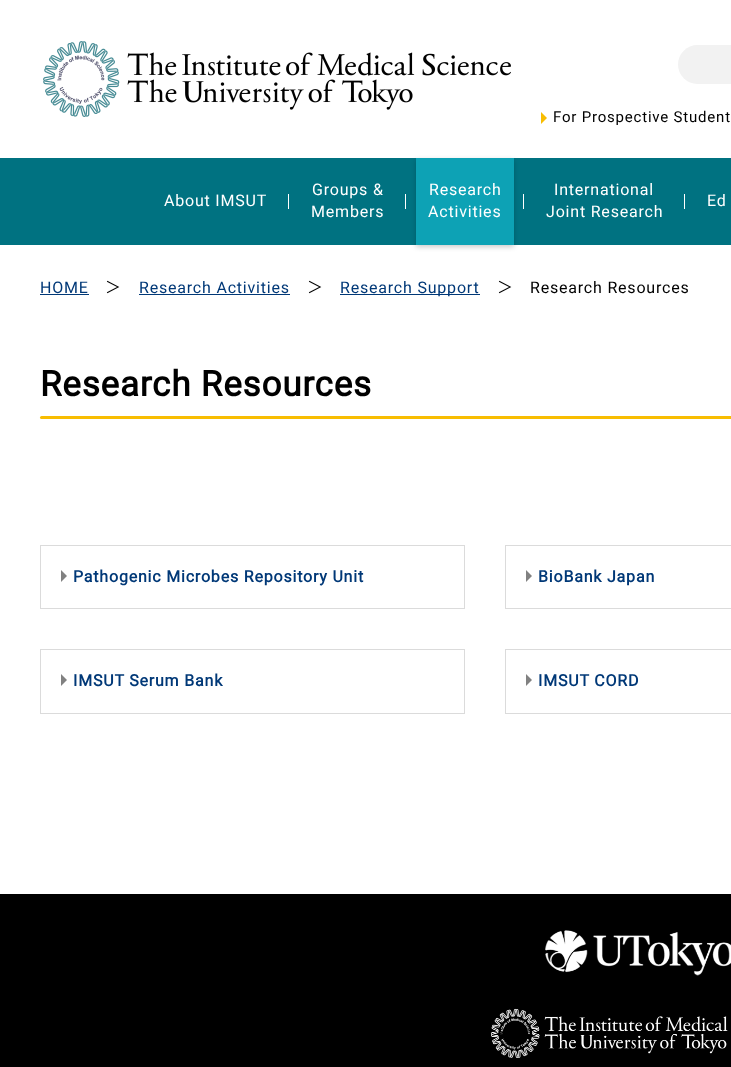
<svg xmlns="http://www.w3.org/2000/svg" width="731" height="1067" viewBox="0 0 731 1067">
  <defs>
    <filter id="blur1" x="-50%" y="-200%" width="200%" height="500%"><feGaussianBlur stdDeviation="2.5"/></filter>
  </defs>
  <rect width="100%" height="100%" fill="#ffffff"/>
  <image x="43" y="41" width="468" height="76" href="img1.png"/>
  <rect x="678" y="45" width="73" height="39" rx="19.5" fill="#f2f2f2"/>
  <path d="M541 124V112L547 118Z" fill="#f8bd01"/>
  <text x="553" y="122" font-family="Roboto" font-size="15" letter-spacing="0.8" fill="#000000">For Prospective Student</text>
  <rect x="0" y="158" width="731" height="87" fill="#007281"/>
  <text x="164" y="206" font-family="Roboto" font-size="16" letter-spacing="0.8" fill="#ffffff">About IMSUT</text>
  <rect x="288" y="194" width="1" height="15" fill="#ffffff"/>
  <text x="312" y="195" font-family="Roboto" font-size="16" letter-spacing="0.8" fill="#ffffff">Groups &amp;</text>
  <text x="311" y="217" font-family="Roboto" font-size="16" letter-spacing="0.8" fill="#ffffff">Members</text>
  <rect x="405" y="194" width="1" height="15" fill="#ffffff"/>
  <rect x="416" y="160" width="98" height="87" fill="#000000" fill-opacity="0.2" filter="url(#blur1)"/>
  <rect x="416" y="158" width="98" height="87" fill="#0da2b5"/>
  <text x="429" y="195" font-family="Roboto" font-size="16" letter-spacing="0.8" fill="#ffffff">Research</text>
  <text x="428" y="217" font-family="Roboto" font-size="16" letter-spacing="0.8" fill="#ffffff">Activities</text>
  <rect x="523" y="194" width="1" height="15" fill="#ffffff"/>
  <text x="554" y="195" font-family="Roboto" font-size="16" letter-spacing="0.8" fill="#ffffff">International</text>
  <text x="546" y="217" font-family="Roboto" font-size="16" letter-spacing="0.8" fill="#ffffff">Joint Research</text>
  <rect x="684" y="194" width="1" height="15" fill="#ffffff"/>
  <text x="707" y="206" font-family="Roboto" font-size="16" letter-spacing="0.8" fill="#ffffff">Ed</text>
  <text x="40" y="293" font-family="Roboto" font-size="16" letter-spacing="0.8" fill="#003877">HOME</text>
  <rect x="40" y="294" width="49" height="1" fill="#003877"/>
  <text x="105" y="293" font-family="Noto Sans JP" font-size="16" font-weight="100" letter-spacing="0.8" fill="#000000">＞</text>
  <text x="139" y="293" font-family="Roboto" font-size="16" letter-spacing="0.8" fill="#003877">Research Activities</text>
  <rect x="139" y="294" width="151" height="1" fill="#003877"/>
  <text x="307" y="293" font-family="Noto Sans JP" font-size="16" font-weight="100" letter-spacing="0.8" fill="#000000">＞</text>
  <rect x="340" y="294" width="140" height="1" fill="#003877"/>
  <text x="340" y="293" font-family="Roboto" font-size="16" letter-spacing="0.8" fill="#003877">Research Support</text>
  <text x="497" y="293" font-family="Noto Sans JP" font-size="16" font-weight="100" letter-spacing="0.8" fill="#000000">＞</text>
  <text x="530" y="293" font-family="Roboto" font-size="16" letter-spacing="0.8" fill="#000000">Research Resources</text>
  <text x="40" y="396" font-family="Roboto" font-size="35" font-weight="bold" letter-spacing="0.8" fill="#000000">Research Resources</text>
  <rect x="40" y="416" width="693" height="3" rx="1.5" fill="#f8bd01"/>
  <rect x="40.5" y="545.5" width="424" height="63" fill="none" stroke="#dbdbdb"/>
  <path d="M61 582V570L67 576Z" fill="#818181"/>
  <text x="73" y="582" font-family="Roboto" font-size="16" font-weight="bold" letter-spacing="0.8" fill="#003877">Pathogenic Microbes Repository Unit</text>
  <rect x="505.5" y="545.5" width="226" height="63" fill="none" stroke="#dbdbdb"/>
  <path d="M526 582V570L532 576Z" fill="#818181"/>
  <text x="538" y="582" font-family="Roboto" font-size="16" font-weight="bold" letter-spacing="0.8" fill="#003877">BioBank Japan</text>
  <rect x="40.5" y="649.5" width="424" height="64" fill="none" stroke="#dbdbdb"/>
  <path d="M61 686V674L67 680Z" fill="#818181"/>
  <text x="73" y="686" font-family="Roboto" font-size="16" font-weight="bold" letter-spacing="0.8" fill="#003877">IMSUT Serum Bank</text>
  <rect x="505.5" y="649.5" width="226" height="64" fill="none" stroke="#dbdbdb"/>
  <path d="M526 686V674L532 680Z" fill="#818181"/>
  <text x="538" y="686" font-family="Roboto" font-size="16" font-weight="bold" letter-spacing="0.8" fill="#003877">IMSUT CORD</text>
  <rect x="0" y="894" width="731" height="173" fill="#000000"/>
  <image x="545" y="930" width="186" height="46" href="img2.png"/>
  <image x="490" y="1008" width="238" height="50" href="img3.png"/>
</svg>
